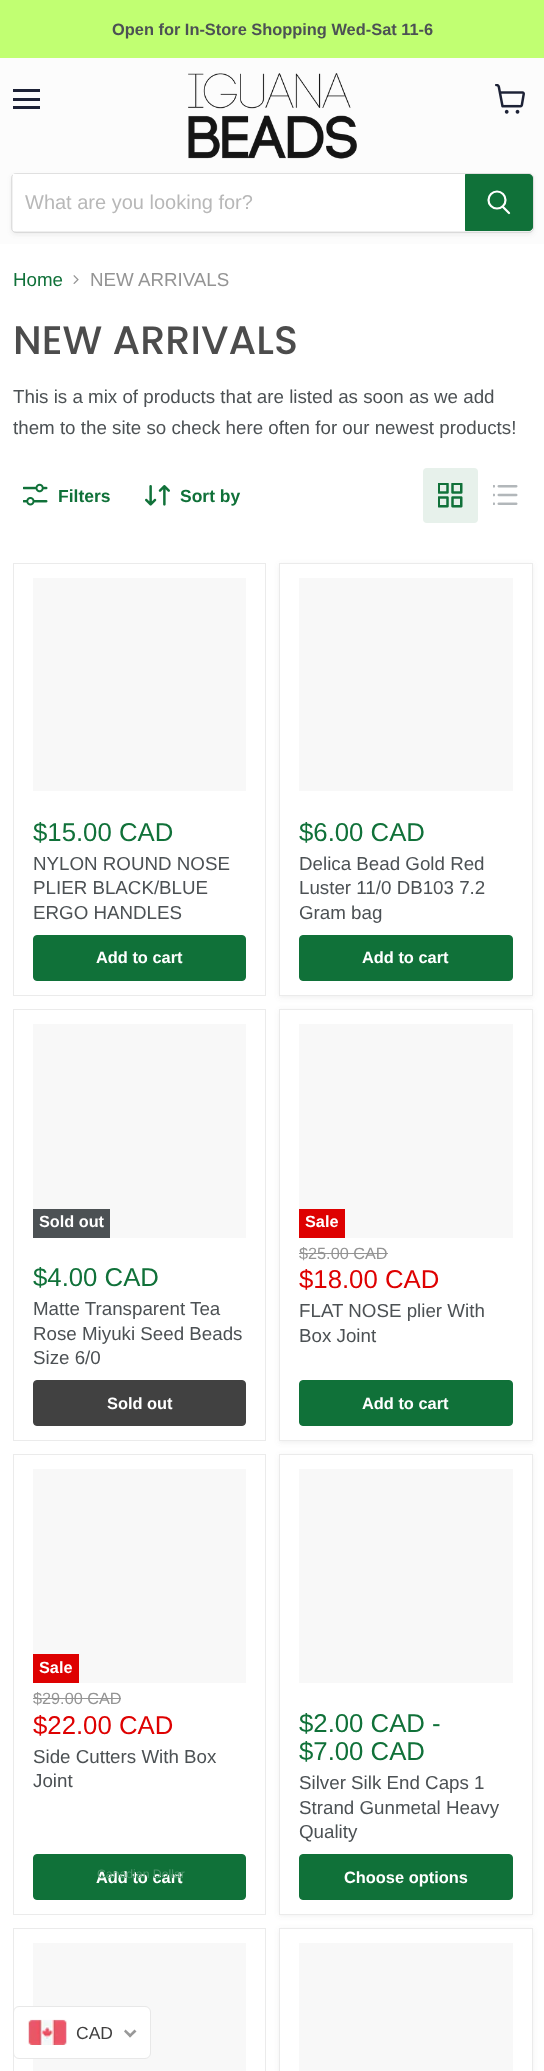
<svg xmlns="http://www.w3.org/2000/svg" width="544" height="2071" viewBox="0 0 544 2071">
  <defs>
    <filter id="blur1" x="-50%" y="-200%" width="200%" height="500%"><feGaussianBlur stdDeviation="2"/></filter>
    <filter id="blur2" x="-50%" y="-200%" width="200%" height="500%"><feGaussianBlur stdDeviation="2.5"/></filter>
  </defs>
  <rect width="100%" height="100%" fill="#ffffff"/>
  <rect x="0" y="0" width="544" height="58" fill="#c1ff72"/>
  <text x="112" y="35" font-family="Arimo" font-size="16.4" font-weight="bold" fill="#4c5154">Open for In-Store Shopping Wed-Sat 11-6</text>
  <rect x="0" y="58" width="544" height="186" fill="#fcfcfc"/>
  <rect x="13" y="89" width="27" height="3" fill="#1d2236"/>
  <rect x="13" y="98" width="27" height="3" fill="#1d2236"/>
  <rect x="13" y="106" width="27" height="3" fill="#1d2236"/>
  <image x="495" y="84" width="30" height="30" href="img1.png"/>
  <image x="188" y="73" width="169" height="86" href="img2.png"/>
  <rect x="11" y="175" width="523" height="60" rx="5" fill="#808080" fill-opacity="0.11" filter="url(#blur1)"/>
  <rect x="11.5" y="173.5" width="522" height="59" rx="4.5" fill="none" stroke="#808080" stroke-opacity="0.2"/>
  <rect x="13" y="174" width="452" height="57" fill="#ffffff"/>
  <text x="25" y="209" font-family="Arimo" font-size="20" fill="#b8b8b8">What are you looking for?</text>
  <path d="M465.5 174.5H529C531 174.5 532.5 176 532.5 178V227C532.5 229 531 230.5 529 230.5H465.5Z" fill="#107139" stroke="#107139"/>
  <path d="M509 213L503 207" fill="none" stroke="#ffffff" stroke-width="2.2" stroke-linecap="round"/>
  <circle cx="497" cy="200" r="8.5" fill="none" stroke="#ffffff" stroke-width="2.2"/>
  <text x="13" y="286" font-family="Arimo" font-size="18.75" fill="#107139">Home</text>
  <image x="73" y="275" width="6" height="9" href="img3.png"/>
  <text x="90" y="286" font-family="Arimo" font-size="18.75" fill="#949494">NEW ARRIVALS</text>
  <text x="13" y="354" font-family="Poppins" font-size="39.75" font-weight="500" fill="#4c4c4c">NEW ARRIVALS</text>
  <text x="13" y="403" font-family="Arimo" font-size="18.75" fill="#4c5154">This is a mix of products that are listed as soon as we add</text>
  <text x="13" y="434" font-family="Arimo" font-size="18.75" fill="#4c5154">them to the site so check here often for our newest products!</text>
  <image x="23" y="483" width="25" height="23" href="img4.png"/>
  <text x="58" y="502" font-family="Arimo" font-size="17.5" font-weight="bold" fill="#107139">Filters</text>
  <image x="145" y="485" width="25" height="21" href="img5.png"/>
  <text x="180" y="502" font-family="Arimo" font-size="17.5" font-weight="bold" fill="#107139">Sort by</text>
  <rect x="423" y="468" width="55" height="55" rx="4" fill="#e7f1eb"/>
  <image x="438" y="483" width="25" height="25" href="img6.png"/>
  <image x="493" y="485" width="25" height="20" href="img7.png"/>
  <rect x="13.5" y="563.5" width="252" height="432" fill="none" stroke="#ebebeb"/>
  <rect x="33" y="578" width="213" height="213" fill="#f8f8f8"/>
  <text x="33" y="841" font-family="Arimo" font-size="25.75" fill="#107139">$15.00 CAD</text>
  <text x="33" y="870" font-family="Arimo" font-size="18.75" fill="#4c5154">NYLON ROUND NOSE</text>
  <text x="33" y="894" font-family="Arimo" font-size="18.75" fill="#4c5154">PLIER BLACK/BLUE</text>
  <text x="33" y="919" font-family="Arimo" font-size="18.75" fill="#4c5154">ERGO HANDLES</text>
  <rect x="33.5" y="935.5" width="212" height="45" rx="3.5" fill="#107139" stroke="#107139"/>
  <text x="96" y="963" font-family="Arimo" font-size="16.4" font-weight="bold" fill="#ffffff">Add to cart</text>
  <rect x="279" y="564" width="254" height="434" fill="#808080" fill-opacity="0.11" filter="url(#blur2)"/>
  <rect x="279.5" y="563.5" width="253" height="432" fill="#ffffff" stroke="#ebebeb"/>
  <rect x="299" y="578" width="214" height="213" fill="#f8f8f8"/>
  <text x="299" y="841" font-family="Arimo" font-size="25.75" fill="#107139">$6.00 CAD</text>
  <text x="299" y="870" font-family="Arimo" font-size="18.75" fill="#4c5154">Delica Bead Gold Red</text>
  <text x="299" y="894" font-family="Arimo" font-size="18.75" fill="#4c5154">Luster 11/0 DB103 7.2</text>
  <text x="299" y="919" font-family="Arimo" font-size="18.75" fill="#4c5154">Gram bag</text>
  <rect x="299.5" y="935.5" width="213" height="45" rx="3.5" fill="#107139" stroke="#107139"/>
  <text x="362" y="963" font-family="Arimo" font-size="16.4" font-weight="bold" fill="#ffffff">Add to cart</text>
  <rect x="13.5" y="1009.5" width="252" height="431" fill="none" stroke="#ebebeb"/>
  <rect x="33" y="1024" width="213" height="214" fill="#f8f8f8"/>
  <rect x="33" y="1209" width="77" height="29" fill="#4c5154"/>
  <text x="39" y="1227" font-family="Arimo" font-size="16.25" font-weight="bold" fill="#ffffff">Sold out</text>
  <text x="33" y="1286" font-family="Arimo" font-size="25.75" fill="#107139">$4.00 CAD</text>
  <text x="33" y="1315" font-family="Arimo" font-size="18.75" fill="#4c5154">Matte Transparent Tea</text>
  <text x="33" y="1340" font-family="Arimo" font-size="18.75" fill="#4c5154">Rose Miyuki Seed Beads</text>
  <text x="33" y="1364" font-family="Arimo" font-size="18.75" fill="#4c5154">Size 6/0</text>
  <rect x="33.5" y="1380.5" width="212" height="45" rx="3.5" fill="#414141" stroke="#414141"/>
  <text x="107" y="1409" font-family="Arimo" font-size="16.4" font-weight="bold" fill="#ffffff">Sold out</text>
  <rect x="279" y="1010" width="254" height="433" fill="#808080" fill-opacity="0.11" filter="url(#blur2)"/>
  <rect x="279.5" y="1009.5" width="253" height="431" fill="#ffffff" stroke="#ebebeb"/>
  <rect x="299" y="1024" width="214" height="214" fill="#f8f8f8"/>
  <rect x="299" y="1209" width="46" height="29" fill="#de0101"/>
  <text x="305" y="1227" font-family="Arimo" font-size="16.25" font-weight="bold" fill="#ffffff">Sale</text>
  <text x="299" y="1259" font-family="Arimo" font-size="16.25" fill="#949494">$25.00 CAD</text>
  <rect x="299" y="1253" width="89" height="1" fill="#949494"/>
  <text x="299" y="1288" font-family="Arimo" font-size="25.75" fill="#de0101">$18.00 CAD</text>
  <text x="299" y="1317" font-family="Arimo" font-size="18.75" fill="#4c5154">FLAT NOSE plier With</text>
  <text x="299" y="1342" font-family="Arimo" font-size="18.75" fill="#4c5154">Box Joint</text>
  <rect x="299.5" y="1380.5" width="213" height="45" rx="3.5" fill="#107139" stroke="#107139"/>
  <text x="362" y="1409" font-family="Arimo" font-size="16.4" font-weight="bold" fill="#ffffff">Add to cart</text>
  <rect x="13.5" y="1454.5" width="252" height="460" fill="none" stroke="#ebebeb"/>
  <rect x="33" y="1469" width="213" height="214" fill="#f8f8f8"/>
  <rect x="33" y="1654" width="46" height="29" fill="#de0101"/>
  <text x="39" y="1673" font-family="Arimo" font-size="16.25" font-weight="bold" fill="#ffffff">Sale</text>
  <text x="33" y="1704" font-family="Arimo" font-size="16.25" fill="#949494">$29.00 CAD</text>
  <rect x="33" y="1698" width="88" height="1" fill="#949494"/>
  <text x="33" y="1734" font-family="Arimo" font-size="25.75" fill="#de0101">$22.00 CAD</text>
  <text x="33" y="1763" font-family="Arimo" font-size="18.75" fill="#4c5154">Side Cutters With Box</text>
  <text x="33" y="1787" font-family="Arimo" font-size="18.75" fill="#4c5154">Joint</text>
  <rect x="33.5" y="1854.5" width="212" height="45" rx="3.5" fill="#107139" stroke="#107139"/>
  <text x="96" y="1883" font-family="Arimo" font-size="16.4" font-weight="bold" fill="#ffffff">Add to cart</text>
  <rect x="279" y="1455" width="254" height="461" fill="#808080" fill-opacity="0.11" filter="url(#blur2)"/>
  <rect x="279.5" y="1454.5" width="253" height="460" fill="#ffffff" stroke="#ebebeb"/>
  <rect x="299" y="1469" width="214" height="214" fill="#f8f8f8"/>
  <text x="299" y="1732" font-family="Arimo" font-size="25.75" fill="#107139">$2.00 CAD</text>
  <text x="432" y="1732" font-family="Arimo" font-size="25.75" fill="#107139">-</text>
  <text x="299" y="1760" font-family="Arimo" font-size="25.75" fill="#107139">$7.00 CAD</text>
  <text x="299" y="1789" font-family="Arimo" font-size="18.75" fill="#4c5154">Silver Silk End Caps 1</text>
  <text x="299" y="1814" font-family="Arimo" font-size="18.75" fill="#4c5154">Strand Gunmetal Heavy</text>
  <text x="299" y="1838" font-family="Arimo" font-size="18.75" fill="#4c5154">Quality</text>
  <rect x="299.5" y="1854.5" width="213" height="45" rx="3.5" fill="#107139" stroke="#107139"/>
  <text x="344" y="1883" font-family="Arimo" font-size="16.4" font-weight="bold" fill="#ffffff">Choose options</text>
  <rect x="13.5" y="1928.5" width="252" height="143" fill="none" stroke="#ebebeb"/>
  <rect x="33" y="1943" width="213" height="128" fill="#f8f8f8"/>
  <rect x="279" y="1929" width="254" height="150" fill="#808080" fill-opacity="0.11" filter="url(#blur2)"/>
  <rect x="279.5" y="1928.5" width="253" height="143" fill="#ffffff" stroke="#ebebeb"/>
  <rect x="299" y="1943" width="214" height="128" fill="#f8f8f8"/>
  <rect x="13.5" y="2006.5" width="137" height="52" rx="5.5" fill="#ffffff" stroke="#e8e8e8"/>
  <text x="97" y="1878" font-family="Liberation Sans" font-size="12.25" fill="#4c956b">Canadian Dollar</text>
  <image x="28" y="2019" width="39" height="26" href="img8.png"/>
  <text x="76" y="2039" font-family="Liberation Sans" font-size="17.5" fill="#403f3f">CAD</text>
  <path d="M134.5 2029.5L136.5 2031.5L130 2037.5L128.5 2035.5Z" fill="#999999"/>
  <path d="M125.5 2029.5L132 2035.5L130 2037.5L124 2031.5Z" fill="#999999"/>
</svg>
